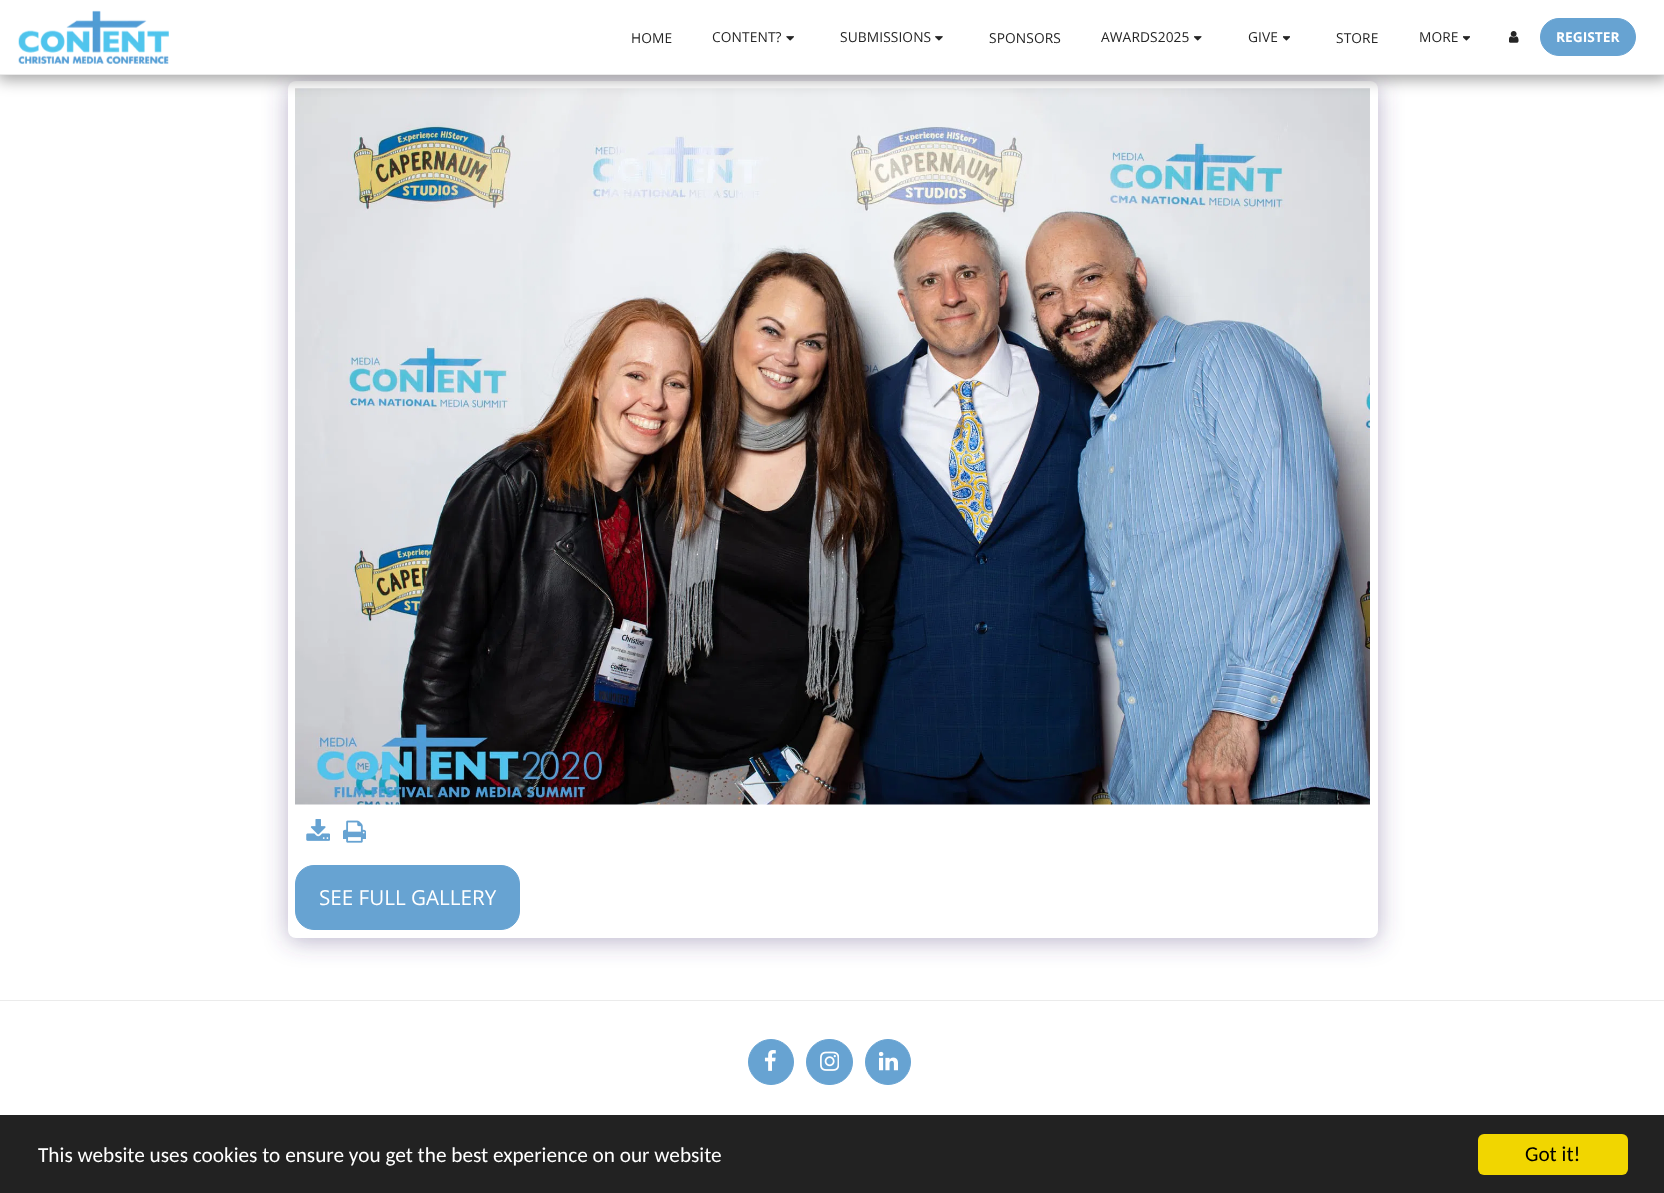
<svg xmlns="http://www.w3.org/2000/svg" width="1664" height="1193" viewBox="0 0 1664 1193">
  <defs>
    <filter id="blur1" x="-50%" y="-200%" width="200%" height="500%"><feGaussianBlur stdDeviation="12.5"/></filter>
    <filter id="blur2" x="-50%" y="-200%" width="200%" height="500%"><feGaussianBlur stdDeviation="7.5"/></filter>
  </defs>
  <rect width="100%" height="100%" fill="#ffffff"/>
  <rect x="288" y="85" width="1090" height="856" rx="8" fill="#4d3f7a" fill-opacity="0.4" filter="url(#blur1)"/>
  <rect x="288" y="81" width="1090" height="857" rx="8" fill="#ffffff"/>
  <image x="295" y="88" width="1075" height="717" href="img7.png"/>
  <rect x="-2" y="0" width="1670" height="80" fill="#000000" fill-opacity="0.35" filter="url(#blur2)"/>
  <rect x="0" y="0" width="1664" height="74" fill="#ffffff"/>
  <rect x="0" y="74" width="1664" height="1" fill="#ebebeb"/>
  <image x="18" y="10" width="151" height="54" href="img1.png"/>
  <text x="631" y="43" font-family="Open Sans" font-size="13.75" letter-spacing="0.1" fill="#252525">HOME</text>
  <text x="712" y="42" font-family="Open Sans" font-size="13.75" letter-spacing="0.1" fill="#252525">CONTENT?</text>
  <image x="786" y="36" width="8" height="5" href="img2.png"/>
  <text x="840" y="42" font-family="Open Sans" font-size="13.75" letter-spacing="0.1" fill="#252525">SUBMISSIONS</text>
  <image x="935" y="36" width="8" height="5" href="img3.png"/>
  <text x="989" y="43" font-family="Open Sans" font-size="13.75" letter-spacing="0.1" fill="#252525">SPONSORS</text>
  <text x="1101" y="42" font-family="Open Sans" font-size="13.75" letter-spacing="0.1" fill="#252525">AWARDS2025</text>
  <image x="1194" y="36" width="8" height="5" href="img4.png"/>
  <text x="1248" y="42" font-family="Open Sans" font-size="13.75" letter-spacing="0.1" fill="#252525">GIVE</text>
  <image x="1283" y="36" width="7" height="5" href="img5.png"/>
  <text x="1336" y="43" font-family="Open Sans" font-size="13.75" letter-spacing="0.1" fill="#252525">STORE</text>
  <text x="1419" y="42" font-family="Open Sans" font-size="13.75" letter-spacing="0.1" fill="#252525">MORE</text>
  <image x="1463" y="36" width="7" height="5" href="img5.png"/>
  <image x="1509" y="31" width="10" height="12" href="img6.png"/>
  <rect x="1540.5" y="18.5" width="95" height="37" rx="18.5" fill="#67a3d2" stroke="#67a3d2"/>
  <text x="1556" y="42" font-family="Open Sans" font-size="13.75" font-weight="bold" fill="#ffffff">REGISTER</text>
  <image x="306" y="819" width="24" height="22" href="img8.png"/>
  <image x="343" y="820" width="23" height="23" href="img9.png"/>
  <rect x="295.5" y="865.5" width="224" height="64" rx="18.5" fill="#67a3d2" stroke="#67a3d2"/>
  <text x="319" y="905" font-family="Open Sans" font-size="20.6" fill="#ffffff">SEE FULL GALLERY</text>
  <rect x="0" y="1000" width="1664" height="1" fill="#ebebeb"/>
  <circle cx="771" cy="1062" r="22.5" fill="#67a3d2" stroke="#67a3d2"/>
  <image x="764" y="1050" width="12" height="21" href="img10.png"/>
  <rect x="806.5" y="1039.5" width="46" height="45" rx="22.5" fill="#67a3d2" stroke="#67a3d2"/>
  <image x="820" y="1051" width="19" height="20" href="img11.png"/>
  <circle cx="888" cy="1062" r="22.5" fill="#67a3d2" stroke="#67a3d2"/>
  <image x="879" y="1051" width="19" height="20" href="img12.png"/>
  <rect x="0" y="1115" width="1664" height="78" fill="#222222"/>
  <text x="38" y="1162" font-family="Carlito" font-size="21.25" fill="#ffffff">This website uses cookies to ensure you get the best experience on our website</text>
  <rect x="1478" y="1134" width="150" height="41" rx="6" fill="#f1d600"/>
  <text x="1525" y="1161" font-family="Carlito" font-size="21.25" fill="#000000">Got it!</text>
</svg>
